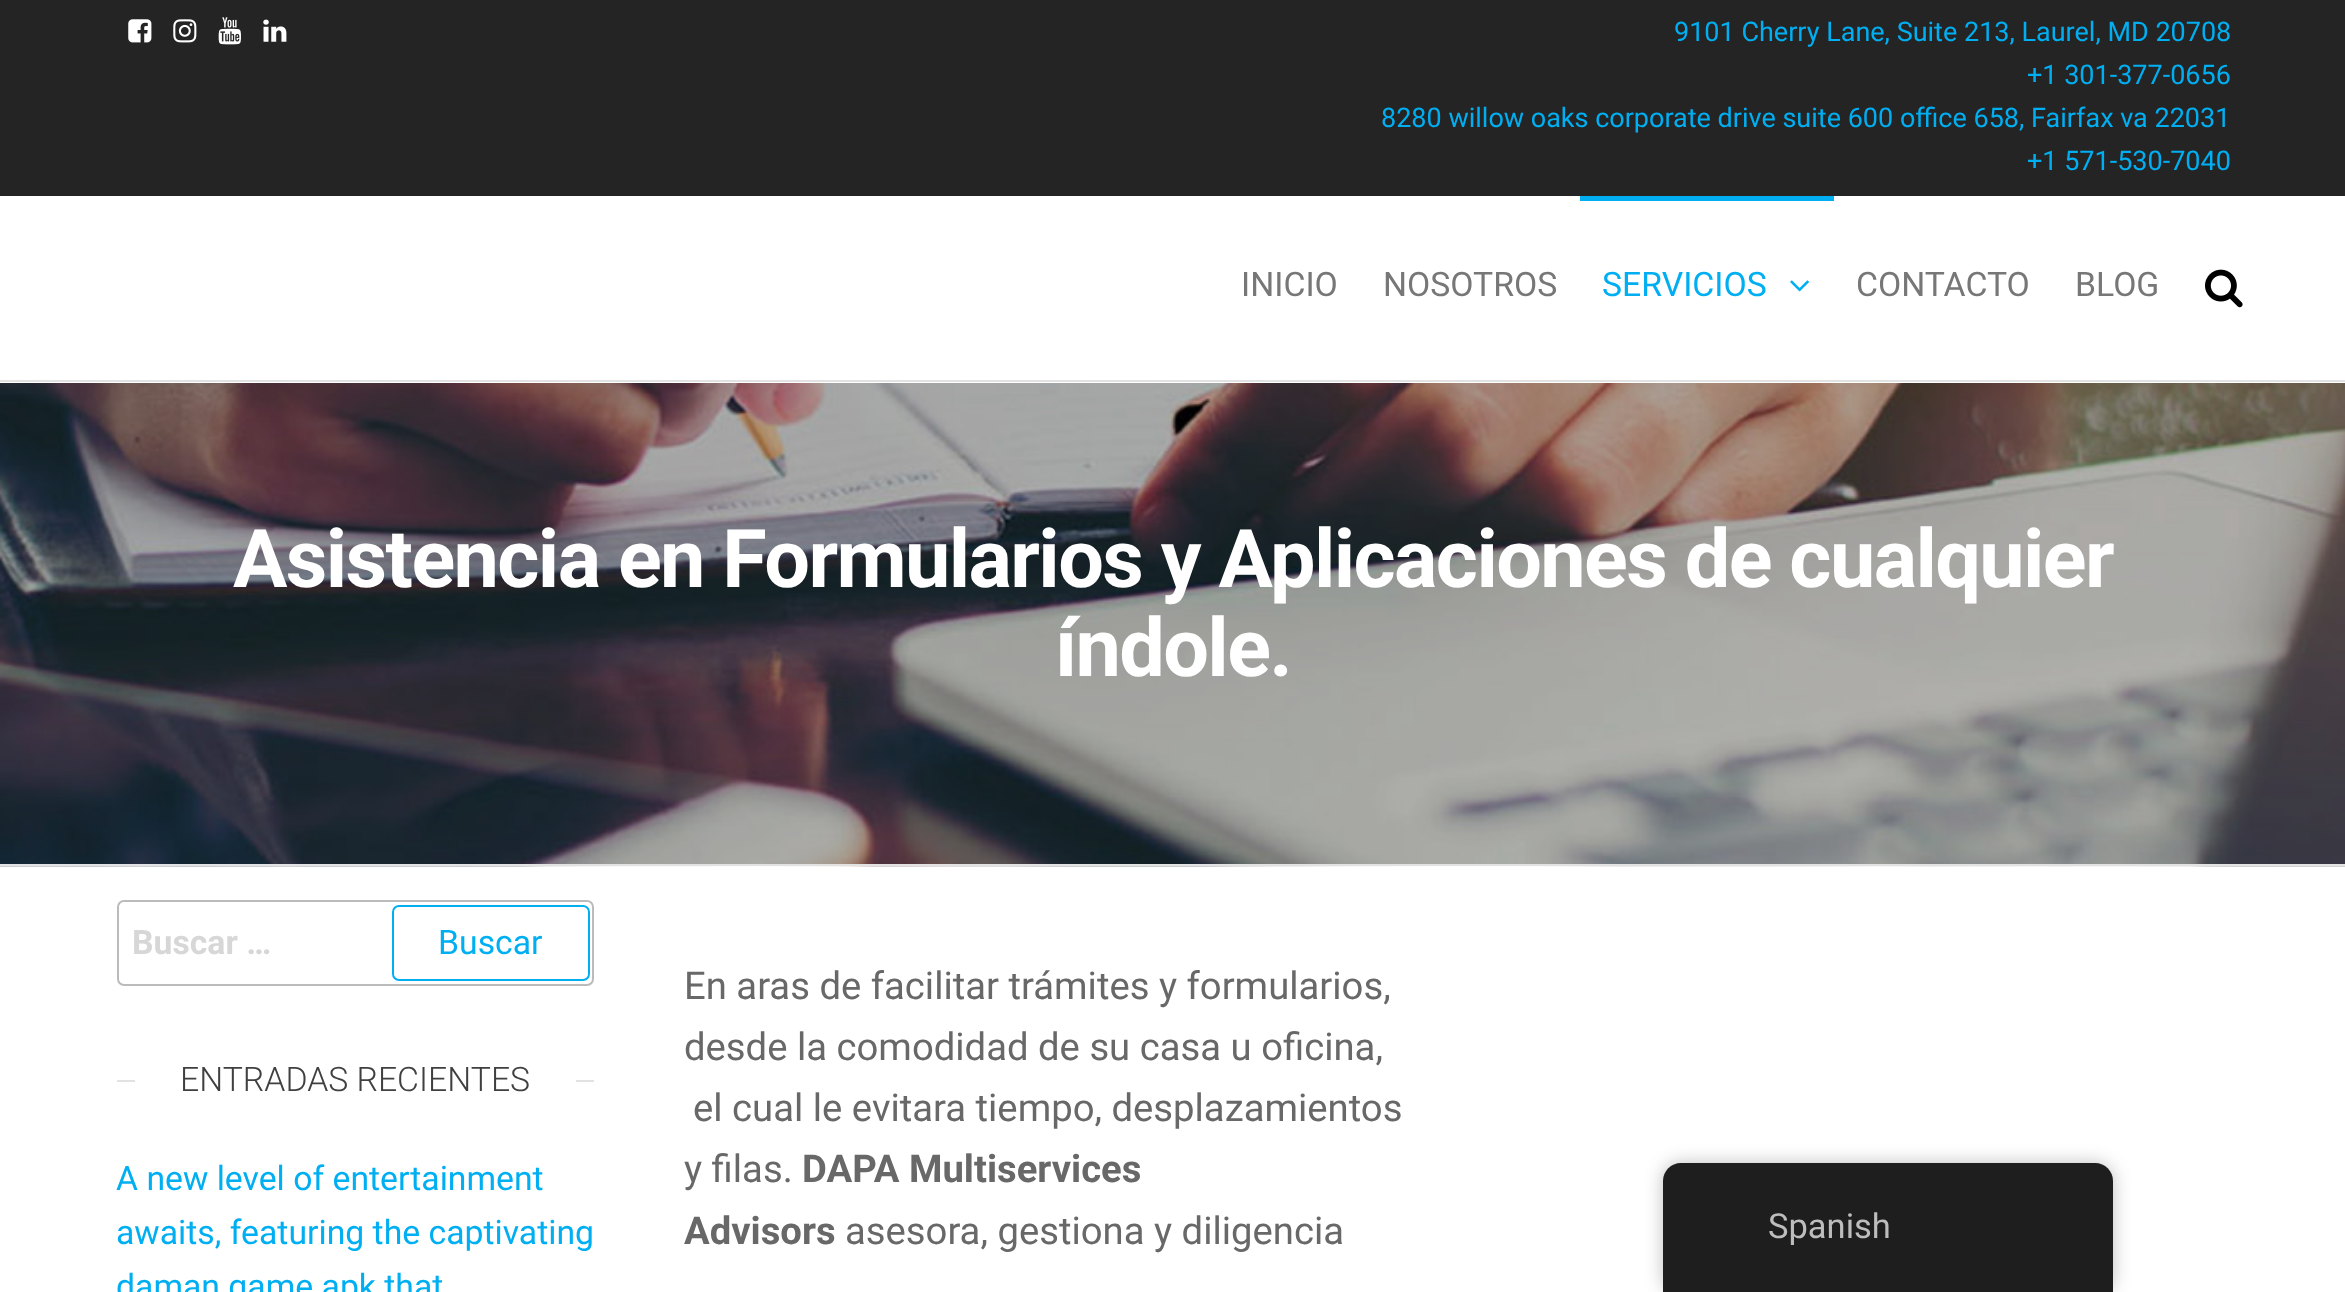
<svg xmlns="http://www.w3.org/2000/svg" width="2345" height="1292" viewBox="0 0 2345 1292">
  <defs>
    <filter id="blur1" x="-50%" y="-200%" width="200%" height="500%"><feGaussianBlur stdDeviation="9"/></filter>
  </defs>
  <rect width="100%" height="100%" fill="#ffffff"/>
  <rect x="0" y="0" width="2345" height="196" fill="#242424"/>
  <image x="128" y="19" width="24" height="24" href="img1.png"/>
  <image x="173" y="19" width="24" height="24" href="img2.png"/>
  <image x="218" y="17" width="23" height="28" href="img3.png"/>
  <image x="263" y="19" width="24" height="23" href="img4.png"/>
  <text x="1674" y="41" font-family="Roboto" font-size="27" fill="#00aff2">9101 Cherry Lane, Suite 213, Laurel, MD 20708</text>
  <text x="2027" y="84" font-family="Roboto" font-size="27" fill="#00aff2">+1 301-377-0656</text>
  <text x="1381" y="127" font-family="Roboto" font-size="27" fill="#00aff2">8280 willow oaks corporate drive suite 600 office 658, Fairfax va 22031</text>
  <text x="2027" y="170" font-family="Roboto" font-size="27" fill="#00aff2">+1 571-530-7040</text>
  <rect x="0" y="380" width="2345" height="2" fill="#e2e2e2"/>
  <text x="1241" y="296" font-family="Roboto" font-size="33.75" fill="#777777">INICIO</text>
  <text x="1383" y="296" font-family="Roboto" font-size="33.75" fill="#777777">NOSOTROS</text>
  <rect x="1580" y="196" width="254" height="5" fill="#00aff2"/>
  <text x="1602" y="296" font-family="Roboto" font-size="33.75" fill="#00aff2">SERVICIOS</text>
  <image x="1790" y="280" width="19" height="12" href="img5.png"/>
  <text x="1856" y="296" font-family="Roboto" font-size="33.75" fill="#777777">CONTACTO</text>
  <text x="2075" y="296" font-family="Roboto" font-size="33.75" fill="#777777">BLOG</text>
  <image x="2205" y="269" width="38" height="39" href="img6.png"/>
  <image x="0" y="383" width="2345" height="484" href="img7.png"/>
  <rect x="0" y="864" width="2345" height="2" fill="#e2e2e2"/>
  <text x="233" y="587" font-family="Roboto" font-size="81" font-weight="bold" letter-spacing="-1.62" fill="#ffffff">Asistencia en Formularios y Aplicaciones de cualquier</text>
  <text x="1055" y="676" font-family="Roboto" font-size="81" font-weight="bold" letter-spacing="-1.62" fill="#ffffff">índole.</text>
  <rect x="118" y="901" width="475" height="84" rx="6" fill="none" stroke="#bbbbbb" stroke-width="2"/>
  <text x="132" y="954" font-family="Roboto" font-size="33.75" font-weight="bold" fill="#d7d7d7">Buscar …</text>
  <rect x="393" y="906" width="196" height="74" rx="6" fill="none" stroke="#00aff2" stroke-width="2"/>
  <text x="438" y="954" font-family="Roboto" font-size="33.75" fill="#00aff2">Buscar</text>
  <rect x="117" y="1080" width="477" height="2" fill="#e2e2e2"/>
  <rect x="135" y="1080" width="441" height="2" fill="#ffffff"/>
  <text x="180" y="1091" font-family="Roboto" font-size="33.75" font-weight="300" fill="#404040">ENTRADAS RECIENTES</text>
  <text x="116" y="1190" font-family="Roboto" font-size="33.75" fill="#00aff2">A new level of entertainment</text>
  <text x="116" y="1244" font-family="Roboto" font-size="33.75" fill="#00aff2">awaits, featuring the captivating</text>
  <text x="116" y="1298" font-family="Roboto" font-size="33.75" fill="#00aff2">daman game apk that</text>
  <text x="684" y="999" font-family="Roboto" font-size="38.25" fill="#686868">En aras de facilitar trámites y formularios,</text>
  <text x="684" y="1060" font-family="Roboto" font-size="38.25" fill="#686868">desde la comodidad de su casa u oficina,</text>
  <text x="693" y="1121" font-family="Roboto" font-size="38.25" fill="#686868">el cual le evitara tiempo, desplazamientos</text>
  <text x="684" y="1182" font-family="Roboto" font-size="38.25" fill="#686868">y filas.</text>
  <text x="802" y="1182" font-family="Roboto" font-size="38.25" font-weight="bold" fill="#686868">DAPA Multiservices</text>
  <text x="684" y="1244" font-family="Roboto" font-size="38.25" font-weight="bold" fill="#686868">Advisors</text>
  <text x="845" y="1244" font-family="Roboto" font-size="38.25" fill="#686868">asesora, gestiona y diligencia</text>
  <rect x="1663" y="1163" width="450" height="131" rx="18" fill="#000000" fill-opacity="0.25" filter="url(#blur1)"/>
  <path d="M1681 1163H2095C2105 1163 2113 1171 2113 1181V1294H1663V1181C1663 1171 1671 1163 1681 1163Z" fill="#1e1e1e"/>
  <text x="1768" y="1238" font-family="Roboto" font-size="34.5" fill="#bdbdbd">Spanish</text>
</svg>
